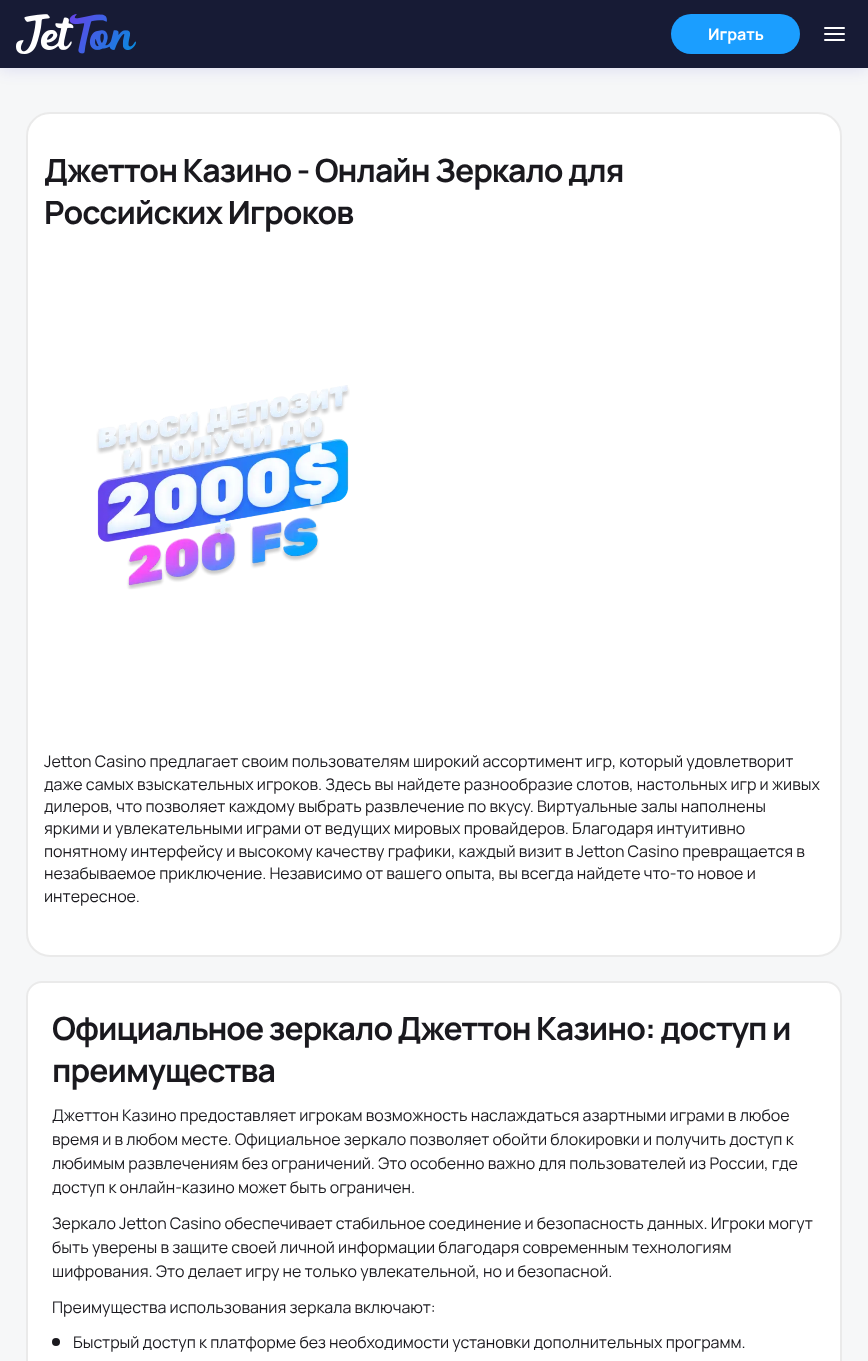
<svg xmlns="http://www.w3.org/2000/svg" width="868" height="1361" viewBox="0 0 868 1361">
  <defs>
    <filter id="blur1" x="-50%" y="-200%" width="200%" height="500%"><feGaussianBlur stdDeviation="8"/></filter>
  </defs>
  <rect width="100%" height="100%" fill="#f6f7f8"/>
  <rect x="0" y="2" width="868" height="68" fill="#1422b4" fill-opacity="0.1" filter="url(#blur1)"/>
  <rect x="0" y="0" width="868" height="68" fill="#171b35"/>
  <image x="16" y="14" width="120" height="40" href="img1.png"/>
  <path d="M671 34C671 44 678 53 687 55H706H784C793 53 800 44 800 34C800 45 791 54 780 54H691C680 54 671 45 671 34Z" fill="#161a32"/>
  <rect x="671" y="14" width="129" height="40" rx="20" fill="#1b9eff"/>
  <text x="708" y="40" font-family="Manrope" font-size="16" font-weight="bold" fill="#ffffff">Играть</text>
  <rect x="824" y="33" width="21" height="2" rx="1" fill="#ffffff"/>
  <rect x="824" y="27" width="21" height="2" rx="1" fill="#ffffff"/>
  <rect x="824" y="39" width="21" height="2" rx="1" fill="#ffffff"/>
  <rect x="26" y="112" width="816" height="845" rx="24" fill="#ffffff"/>
  <rect x="27" y="113" width="814" height="843" rx="23" fill="none" stroke="#333333" stroke-opacity="0.1" stroke-width="2"/>
  <text x="44" y="182" font-family="Manrope" font-size="32" font-weight="bold" letter-spacing="-1" fill="#1a191e">Джеттон Казино - Онлайн Зеркало для</text>
  <text x="44" y="224" font-family="Manrope" font-size="32" font-weight="bold" letter-spacing="-1" fill="#1a191e">Российских Игроков</text>
  <image x="96" y="385" width="254" height="205" href="img2.png"/>
  <text x="44" y="767" font-family="Manrope" font-size="16" fill="#1a191e">Jetton Casino предлагает своим пользователям широкий ассортимент игр, который удовлетворит</text>
  <text x="44" y="790" font-family="Manrope" font-size="16" fill="#1a191e">даже самых взыскательных игроков. Здесь вы найдете разнообразие слотов, настольных игр и живых</text>
  <text x="44" y="812" font-family="Manrope" font-size="16" fill="#1a191e">дилеров, что позволяет каждому выбрать развлечение по вкусу. Виртуальные залы наполнены</text>
  <text x="44" y="834" font-family="Manrope" font-size="16" fill="#1a191e">яркими и увлекательными играми от ведущих мировых провайдеров. Благодаря интуитивно</text>
  <text x="44" y="857" font-family="Manrope" font-size="16" fill="#1a191e">понятному интерфейсу и высокому качеству графики, каждый визит в Jetton Casino превращается в</text>
  <text x="44" y="879" font-family="Manrope" font-size="16" fill="#1a191e">незабываемое приключение. Независимо от вашего опыта, вы всегда найдете что-то новое и</text>
  <text x="44" y="902" font-family="Manrope" font-size="16" fill="#1a191e">интересное.</text>
  <rect x="26" y="981" width="816" height="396" rx="16" fill="#ffffff"/>
  <rect x="27" y="982" width="814" height="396" rx="15" fill="none" stroke="#333333" stroke-opacity="0.1" stroke-width="2"/>
  <text x="52" y="1040" font-family="Manrope" font-size="32" font-weight="bold" letter-spacing="-1" fill="#1a191e">Официальное зеркало Джеттон Казино: доступ и</text>
  <text x="52" y="1082" font-family="Manrope" font-size="32" font-weight="bold" letter-spacing="-1" fill="#1a191e">преимущества</text>
  <text x="52" y="1121" font-family="Manrope" font-size="16" fill="#1a191e">Джеттон Казино предоставляет игрокам возможность наслаждаться азартными играми в любое</text>
  <text x="52" y="1145" font-family="Manrope" font-size="16" fill="#1a191e">время и в любом месте. Официальное зеркало позволяет обойти блокировки и получить доступ к</text>
  <text x="52" y="1169" font-family="Manrope" font-size="16" fill="#1a191e">любимым развлечениям без ограничений. Это особенно важно для пользователей из России, где</text>
  <text x="52" y="1193" font-family="Manrope" font-size="16" fill="#1a191e">доступ к онлайн-казино может быть ограничен.</text>
  <text x="52" y="1229" font-family="Manrope" font-size="16" fill="#1a191e">Зеркало Jetton Casino обеспечивает стабильное соединение и безопасность данных. Игроки могут</text>
  <text x="52" y="1253" font-family="Manrope" font-size="16" fill="#1a191e">быть уверены в защите своей личной информации благодаря современным технологиям</text>
  <text x="52" y="1277" font-family="Manrope" font-size="16" fill="#1a191e">шифрования. Это делает игру не только увлекательной, но и безопасной.</text>
  <text x="52" y="1313" font-family="Manrope" font-size="16" fill="#1a191e">Преимущества использования зеркала включают:</text>
  <circle cx="56" cy="1342" r="4" fill="#1a191e"/>
  <text x="73" y="1348" font-family="Manrope" font-size="16" fill="#1a191e">Быстрый доступ к платформе без необходимости установки дополнительных программ.</text>
</svg>
